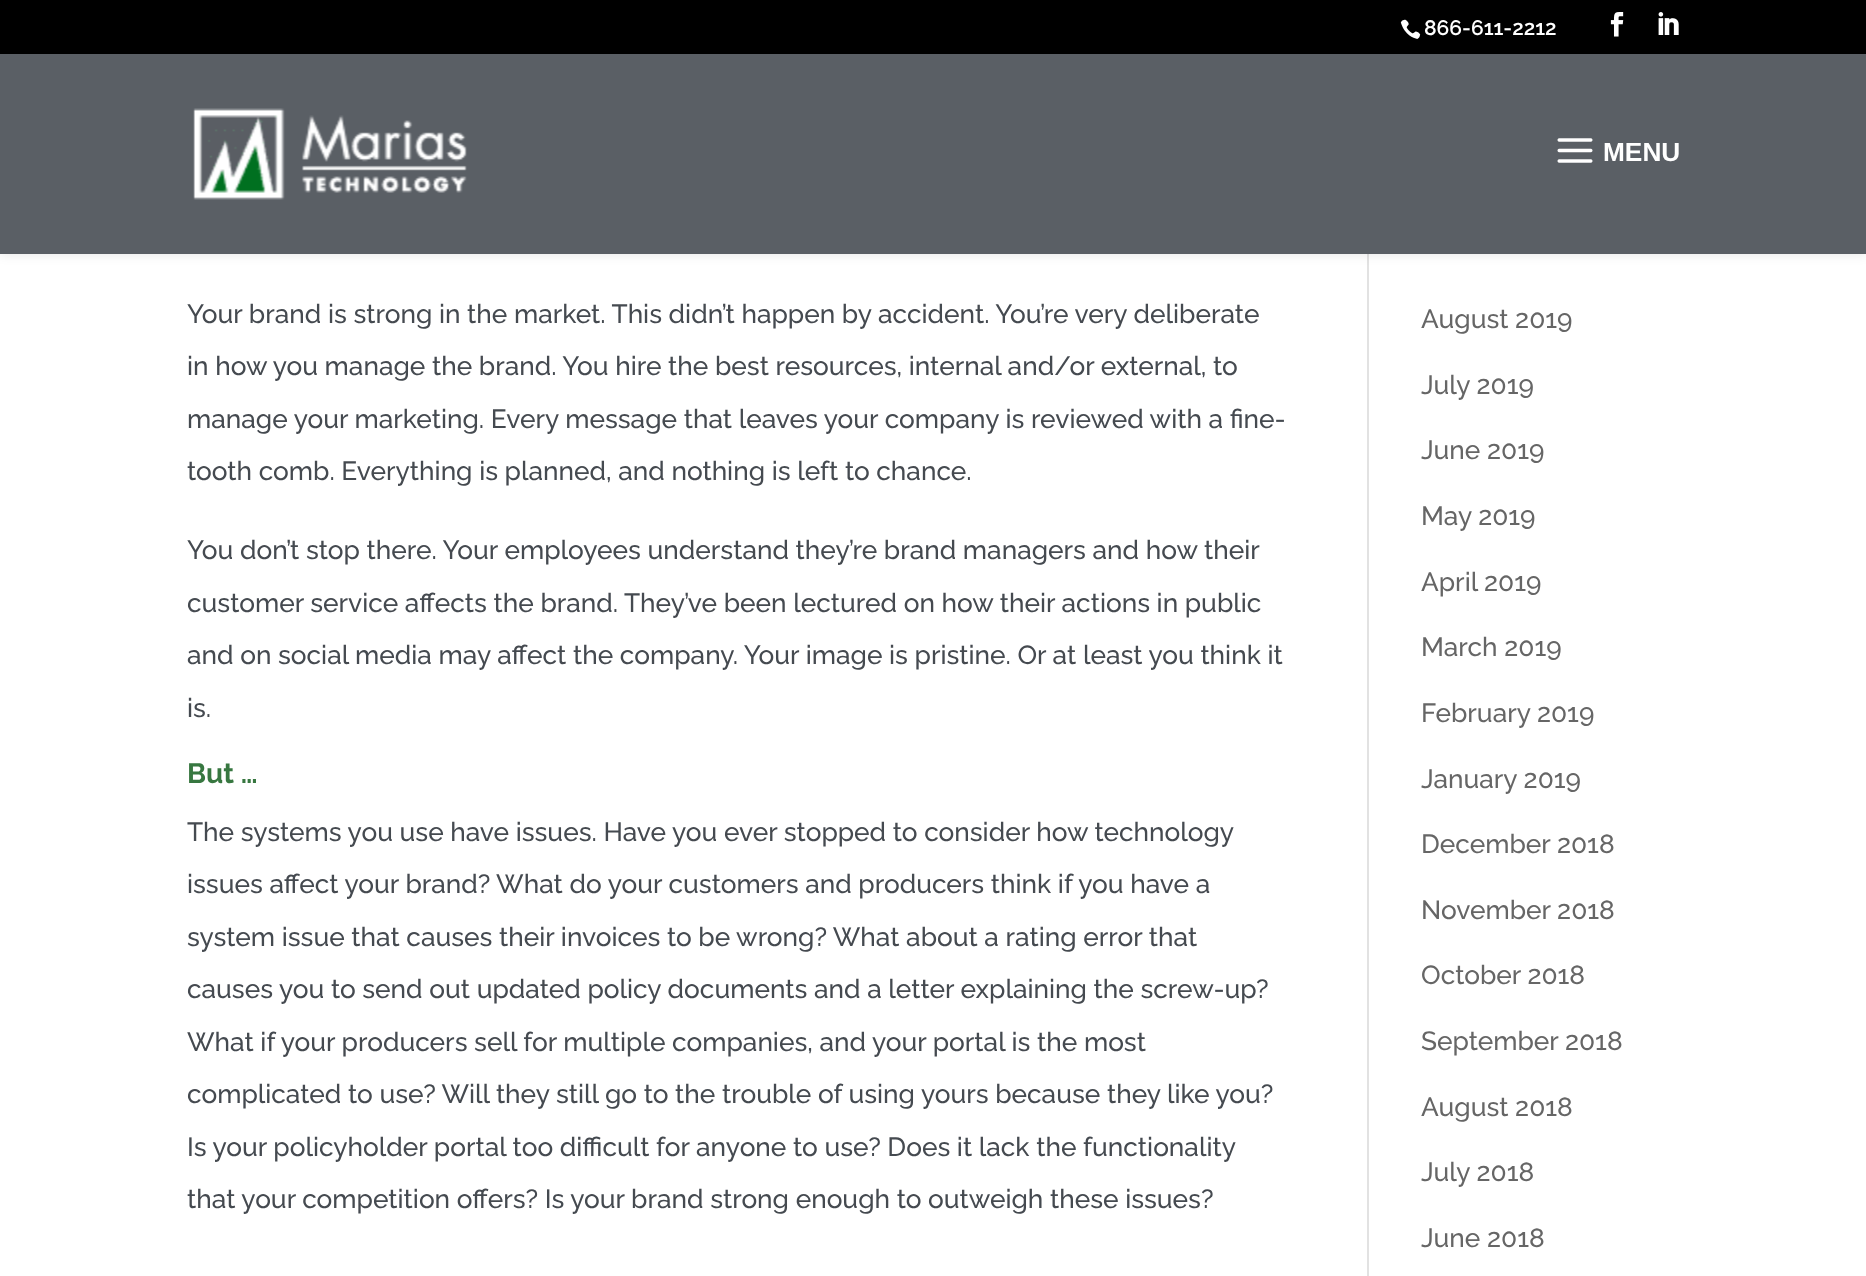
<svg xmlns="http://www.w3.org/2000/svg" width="1866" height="1276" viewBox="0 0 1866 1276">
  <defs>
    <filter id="blur1" x="-50%" y="-200%" width="200%" height="500%"><feGaussianBlur stdDeviation="6"/></filter>
  </defs>
  <rect width="100%" height="100%" fill="#ffffff"/>
  <rect x="1367" y="254" width="2" height="1022" fill="#e2e2e2"/>
  <rect x="0" y="54" width="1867" height="200" fill="#000000" fill-opacity="0.1" filter="url(#blur1)"/>
  <rect x="0" y="0" width="1866" height="54" fill="#000000"/>
  <image x="1400" y="19" width="21" height="20" href="img1.png"/>
  <text x="1424" y="35" font-family="Raleway" font-size="21" font-weight="600" fill="#ffffff">866-611-2212</text>
  <image x="1610" y="12" width="14" height="25" href="img2.png"/>
  <image x="1658" y="12" width="21" height="23" href="img3.png"/>
  <rect x="0" y="54" width="1866" height="200" fill="#5a5f65"/>
  <image x="193" y="108" width="274" height="92" href="img4.png"/>
  <image x="1557" y="138" width="36" height="25" href="img5.png"/>
  <text x="1603" y="161" font-family="Liberation Sans" font-size="26.25" font-weight="bold" fill="#ffffff">MENU</text>
  <text x="187" y="323" font-family="Raleway" font-size="26.25" font-weight="500" fill="#454a50">Your brand is strong in the market. This didn’t happen by accident. You’re very deliberate</text>
  <text x="187" y="375" font-family="Raleway" font-size="26.25" font-weight="500" fill="#454a50">in how you manage the brand. You hire the best resources, internal and/or external, to</text>
  <text x="187" y="428" font-family="Raleway" font-size="26.25" font-weight="500" fill="#454a50">manage your marketing. Every message that leaves your company is reviewed with a fine-</text>
  <text x="187" y="480" font-family="Raleway" font-size="26.25" font-weight="500" fill="#454a50">tooth comb. Everything is planned, and nothing is left to chance.</text>
  <text x="187" y="559" font-family="Raleway" font-size="26.25" font-weight="500" fill="#454a50">You don’t stop there. Your employees understand they’re brand managers and how their</text>
  <text x="187" y="612" font-family="Raleway" font-size="26.25" font-weight="500" fill="#454a50">customer service affects the brand. They’ve been lectured on how their actions in public</text>
  <text x="187" y="664" font-family="Raleway" font-size="26.25" font-weight="500" fill="#454a50">and on social media may affect the company. Your image is pristine. Or at least you think it</text>
  <text x="187" y="717" font-family="Raleway" font-size="26.25" font-weight="500" fill="#454a50">is.</text>
  <text x="187" y="783" font-family="Raleway" font-size="28" font-weight="bold" fill="#377740">But …</text>
  <text x="187" y="841" font-family="Raleway" font-size="26.25" font-weight="500" fill="#454a50">The systems you use have issues. Have you ever stopped to consider how technology</text>
  <text x="187" y="893" font-family="Raleway" font-size="26.25" font-weight="500" fill="#454a50">issues affect your brand? What do your customers and producers think if you have a</text>
  <text x="187" y="946" font-family="Raleway" font-size="26.25" font-weight="500" fill="#454a50">system issue that causes their invoices to be wrong? What about a rating error that</text>
  <text x="187" y="998" font-family="Raleway" font-size="26.25" font-weight="500" fill="#454a50">causes you to send out updated policy documents and a letter explaining the screw-up?</text>
  <text x="187" y="1051" font-family="Raleway" font-size="26.25" font-weight="500" fill="#454a50">What if your producers sell for multiple companies, and your portal is the most</text>
  <text x="187" y="1103" font-family="Raleway" font-size="26.25" font-weight="500" fill="#454a50">complicated to use? Will they still go to the trouble of using yours because they like you?</text>
  <text x="187" y="1156" font-family="Raleway" font-size="26.25" font-weight="500" fill="#454a50">Is your policyholder portal too difficult for anyone to use? Does it lack the functionality</text>
  <text x="187" y="1208" font-family="Raleway" font-size="26.25" font-weight="500" fill="#454a50">that your competition offers? Is your brand strong enough to outweigh these issues?</text>
  <text x="1421" y="328" font-family="Raleway" font-size="26.25" font-weight="500" fill="#666666">August 2019</text>
  <text x="1421" y="394" font-family="Raleway" font-size="26.25" font-weight="500" fill="#666666">July 2019</text>
  <text x="1421" y="459" font-family="Raleway" font-size="26.25" font-weight="500" fill="#666666">June 2019</text>
  <text x="1421" y="525" font-family="Raleway" font-size="26.25" font-weight="500" fill="#666666">May 2019</text>
  <text x="1421" y="591" font-family="Raleway" font-size="26.25" font-weight="500" fill="#666666">April 2019</text>
  <text x="1421" y="656" font-family="Raleway" font-size="26.25" font-weight="500" fill="#666666">March 2019</text>
  <text x="1421" y="722" font-family="Raleway" font-size="26.25" font-weight="500" fill="#666666">February 2019</text>
  <text x="1421" y="788" font-family="Raleway" font-size="26.25" font-weight="500" fill="#666666">January 2019</text>
  <text x="1421" y="853" font-family="Raleway" font-size="26.25" font-weight="500" fill="#666666">December 2018</text>
  <text x="1421" y="919" font-family="Raleway" font-size="26.25" font-weight="500" fill="#666666">November 2018</text>
  <text x="1421" y="984" font-family="Raleway" font-size="26.25" font-weight="500" fill="#666666">October 2018</text>
  <text x="1421" y="1050" font-family="Raleway" font-size="26.25" font-weight="500" fill="#666666">September 2018</text>
  <text x="1421" y="1116" font-family="Raleway" font-size="26.25" font-weight="500" fill="#666666">August 2018</text>
  <text x="1421" y="1181" font-family="Raleway" font-size="26.25" font-weight="500" fill="#666666">July 2018</text>
  <text x="1421" y="1247" font-family="Raleway" font-size="26.25" font-weight="500" fill="#666666">June 2018</text>
</svg>
